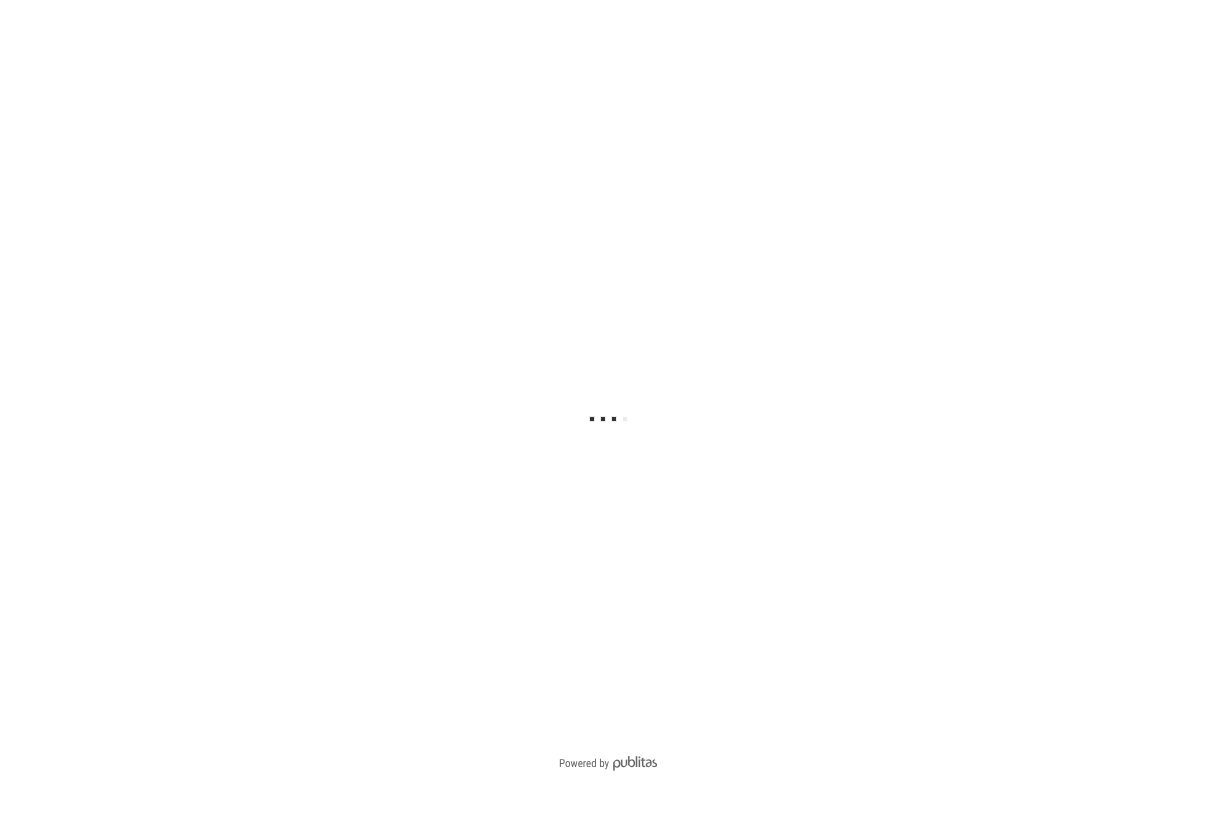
<svg xmlns="http://www.w3.org/2000/svg" width="1221" height="840" viewBox="0 0 1221 840">
  <rect width="100%" height="100%" fill="#ffffff"/>
  <rect x="589.5" y="416.5" width="5" height="5" fill="#333333" stroke="#ebebeb"/>
  <rect x="600.5" y="416.5" width="5" height="5" fill="#333333" stroke="#ebebeb"/>
  <rect x="611.5" y="416.5" width="5" height="5" fill="#333333" stroke="#ebebeb"/>
  <rect x="622.5" y="416.5" width="5" height="5" fill="#ebebeb" stroke="#fdfdfd"/>
  <text x="559" y="767" font-family="Roboto Condensed" font-size="11" fill="#666666">Powered by</text>
  <image x="613" y="756" width="45" height="15" href="img1.png"/>
</svg>
